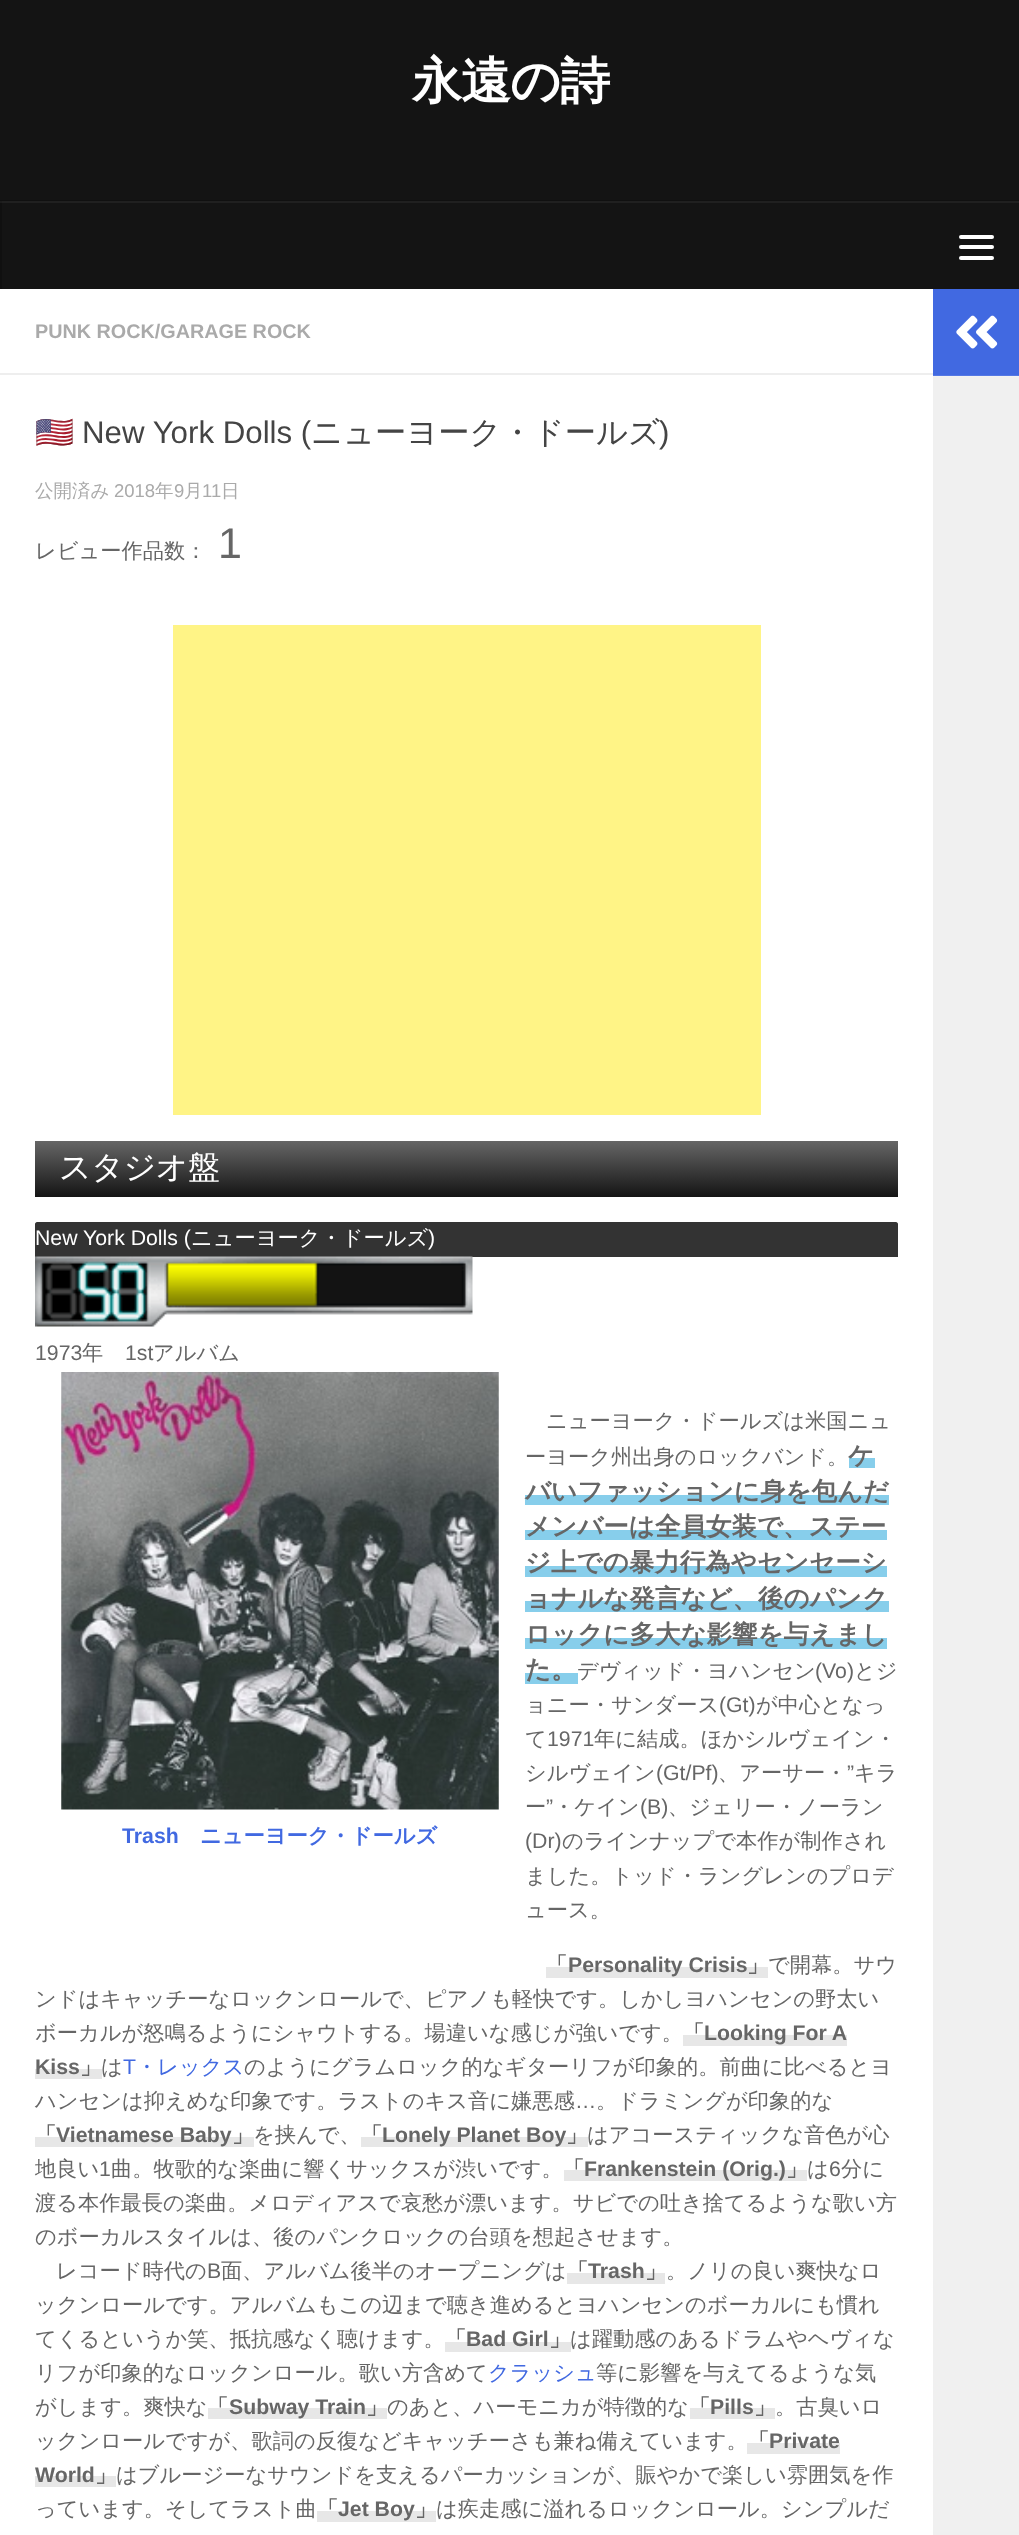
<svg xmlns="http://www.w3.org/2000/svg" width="1019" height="2535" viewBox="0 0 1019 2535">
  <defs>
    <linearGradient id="g1" gradientUnits="userSpaceOnUse" x1="466" y1="1141" x2="466" y2="1197"><stop offset="0" stop-color="#666666"/><stop offset="1" stop-color="#141414"/></linearGradient>
  </defs>
  <rect width="100%" height="100%" fill="#ffffff"/>
  <rect x="0" y="0" width="1019" height="289" fill="#141414"/>
  <rect x="0" y="201" width="1019" height="2" fill="#202020"/>
  <text x="412" y="98" font-family="WenQuanYi Zen Hei" font-size="50" font-weight="bold" letter-spacing="-1" fill="#ffffff">永遠の詩</text>
  <rect x="0" y="200" width="1019" height="1" fill="#101010"/>
  <rect x="0" y="201" width="2" height="88" fill="#101010"/>
  <rect x="0" y="201" width="2" height="2" fill="#1c1c1c"/>
  <rect x="959" y="235" width="35" height="4" rx="2" fill="#ffffff"/>
  <rect x="959" y="245" width="35" height="4" rx="2" fill="#ffffff"/>
  <rect x="959" y="256" width="35" height="4" rx="2" fill="#ffffff"/>
  <rect x="0" y="373" width="933" height="2" fill="#eeeeee"/>
  <text x="35" y="338" font-family="Liberation Sans" font-size="19.8" font-weight="bold" fill="#aaaaaa">PUNK ROCK/GARAGE ROCK</text>
  <text x="35" y="443" font-family="Noto Color Emoji" font-size="31.25" fill="#444444">🇺🇸</text>
  <text x="82" y="443" font-family="Liberation Sans" font-size="31.25" fill="#444444">New York Dolls (</text>
  <text x="311" y="443" font-family="WenQuanYi Zen Hei" font-size="31.25" font-weight="500" fill="#444444">ニューヨーク・ドールズ</text>
  <text x="659" y="443" font-family="Liberation Sans" font-size="31.25" fill="#444444">)</text>
  <text x="35" y="497" font-family="WenQuanYi Zen Hei" font-size="18.5" font-weight="500" fill="#aaaaaa">公開済み</text>
  <text x="114" y="497" font-family="Liberation Sans" font-size="18.5" fill="#aaaaaa">2018</text>
  <text x="155" y="497" font-family="WenQuanYi Zen Hei" font-size="18.5" font-weight="500" fill="#aaaaaa">年</text>
  <text x="174" y="497" font-family="Liberation Sans" font-size="18.5" fill="#aaaaaa">9</text>
  <text x="184" y="497" font-family="WenQuanYi Zen Hei" font-size="18.5" font-weight="500" fill="#aaaaaa">月</text>
  <text x="202" y="497" font-family="Liberation Sans" font-size="18.5" fill="#aaaaaa">11</text>
  <text x="221" y="497" font-family="WenQuanYi Zen Hei" font-size="18.5" font-weight="500" fill="#aaaaaa">日</text>
  <text x="35" y="558" font-family="WenQuanYi Zen Hei" font-size="21.25" font-weight="500" fill="#666666">レビュー作品数：</text>
  <text x="218" y="558" font-family="Liberation Sans" font-size="43" fill="#666666">1</text>
  <rect x="173" y="625" width="588" height="490" fill="#fff486"/>
  <rect x="35" y="1141" width="863" height="56" fill="url(#g1)"/>
  <text x="59" y="1178" font-family="WenQuanYi Zen Hei" font-size="32" font-weight="500" letter-spacing="-0.5" fill="#ffffff">スタジオ盤</text>
  <path d="M37 1222H896C897 1222 898 1223 898 1224V1257H35V1224C35 1223 36 1222 37 1222Z" fill="#333333"/>
  <text x="35" y="1245" font-family="Liberation Sans" font-size="21.25" fill="#ffffff">New York Dolls (</text>
  <text x="191" y="1245" font-family="WenQuanYi Zen Hei" font-size="21.25" font-weight="500" fill="#ffffff">ニューヨーク・ドールズ</text>
  <text x="428" y="1245" font-family="Liberation Sans" font-size="21.25" fill="#ffffff">)</text>
  <image x="35" y="1256" width="438" height="71" href="img1.png"/>
  <text x="35" y="1360" font-family="Liberation Sans" font-size="21.25" fill="#666666">1973</text>
  <text x="82" y="1360" font-family="WenQuanYi Zen Hei" font-size="21.25" font-weight="500" fill="#666666">年</text>
  <text x="125" y="1360" font-family="Liberation Sans" font-size="21.25" fill="#666666">1st</text>
  <text x="153" y="1360" font-family="WenQuanYi Zen Hei" font-size="21.25" font-weight="500" fill="#666666">アルバム</text>
  <image x="61" y="1372" width="438" height="438" href="img2.png"/>
  <text x="122" y="1843" font-family="Liberation Sans" font-size="21.25" font-weight="bold" fill="#4169e1">Trash</text>
  <text x="200" y="1843" font-family="WenQuanYi Zen Hei" font-size="21.25" font-weight="bold" fill="#4169e1">ニューヨーク・ドールズ</text>
  <text x="546" y="1428" font-family="WenQuanYi Zen Hei" font-size="21.25" font-weight="500" fill="#666666">ニューヨーク・ドールズは米国ニュ</text>
  <text x="525" y="1464" font-family="WenQuanYi Zen Hei" font-size="21.25" font-weight="500" fill="#666666">ーヨーク州出身のロックバンド。</text>
  <rect x="849" y="1458" width="26" height="10" fill="#87ceeb"/>
  <text x="848" y="1464" font-family="WenQuanYi Zen Hei" font-size="25.5" font-weight="bold" fill="#666666">ケ</text>
  <rect x="525" y="1495" width="364" height="10" fill="#87ceeb"/>
  <text x="525" y="1500" font-family="WenQuanYi Zen Hei" font-size="25.5" font-weight="bold" fill="#666666">バいファッションに身を包んだ</text>
  <rect x="525" y="1530" width="362" height="10" fill="#87ceeb"/>
  <text x="525" y="1535" font-family="WenQuanYi Zen Hei" font-size="25.5" font-weight="bold" fill="#666666">メンバーは全員女装で、ステー</text>
  <rect x="525" y="1566" width="362" height="11" fill="#87ceeb"/>
  <text x="525" y="1571" font-family="WenQuanYi Zen Hei" font-size="25.5" font-weight="bold" fill="#666666">ジ上での暴力行為やセンセーシ</text>
  <rect x="525" y="1601" width="364" height="11" fill="#87ceeb"/>
  <text x="525" y="1607" font-family="WenQuanYi Zen Hei" font-size="25.5" font-weight="bold" fill="#666666">ョナルな発言など、後のパンク</text>
  <rect x="525" y="1638" width="362" height="11" fill="#87ceeb"/>
  <text x="525" y="1643" font-family="WenQuanYi Zen Hei" font-size="25.5" font-weight="bold" fill="#666666">ロックに多大な影響を与えまし</text>
  <rect x="525" y="1673" width="53" height="11" fill="#87ceeb"/>
  <text x="525" y="1678" font-family="WenQuanYi Zen Hei" font-size="25.5" font-weight="bold" fill="#666666">た。</text>
  <text x="577" y="1678" font-family="WenQuanYi Zen Hei" font-size="21.25" font-weight="500" fill="#666666">デヴィッド・ヨハンセン</text>
  <text x="815" y="1678" font-family="Liberation Sans" font-size="21.25" fill="#666666">(Vo)</text>
  <text x="854" y="1678" font-family="WenQuanYi Zen Hei" font-size="21.25" font-weight="500" fill="#666666">とジ</text>
  <text x="525" y="1712" font-family="WenQuanYi Zen Hei" font-size="21.25" font-weight="500" fill="#666666">ョニー・サンダース</text>
  <text x="719" y="1712" font-family="Liberation Sans" font-size="21.25" fill="#666666">(Gt)</text>
  <text x="756" y="1712" font-family="WenQuanYi Zen Hei" font-size="21.25" font-weight="500" fill="#666666">が中心となっ</text>
  <text x="525" y="1746" font-family="WenQuanYi Zen Hei" font-size="21.25" font-weight="500" fill="#666666">て</text>
  <text x="547" y="1746" font-family="Liberation Sans" font-size="21.25" fill="#666666">1971</text>
  <text x="594" y="1746" font-family="WenQuanYi Zen Hei" font-size="21.25" font-weight="500" fill="#666666">年に結成。ほかシルヴェイン・</text>
  <text x="525" y="1780" font-family="WenQuanYi Zen Hei" font-size="21.25" font-weight="500" fill="#666666">シルヴェイン</text>
  <text x="656" y="1780" font-family="Liberation Sans" font-size="21.25" fill="#666666">(Gt/Pf)</text>
  <text x="718" y="1780" font-family="WenQuanYi Zen Hei" font-size="21.25" font-weight="500" fill="#666666">、アーサー・</text>
  <text x="847" y="1780" font-family="Liberation Sans" font-size="21.25" fill="#666666">”</text>
  <text x="854" y="1780" font-family="WenQuanYi Zen Hei" font-size="21.25" font-weight="500" fill="#666666">キラ</text>
  <text x="546" y="1814" font-family="Liberation Sans" font-size="21.25" fill="#666666">”</text>
  <text x="553" y="1814" font-family="WenQuanYi Zen Hei" font-size="21.25" font-weight="500" fill="#666666">・ケイン</text>
  <text x="640" y="1814" font-family="Liberation Sans" font-size="21.25" fill="#666666">(B)</text>
  <text x="668" y="1814" font-family="WenQuanYi Zen Hei" font-size="21.25" font-weight="500" fill="#666666">、ジェリー・ノーラン</text>
  <text x="525" y="1814" font-family="WenQuanYi Zen Hei" font-size="21.25" font-weight="500" fill="#666666">ー</text>
  <text x="525" y="1848" font-family="Liberation Sans" font-size="21.25" fill="#666666">(Dr)</text>
  <text x="562" y="1848" font-family="WenQuanYi Zen Hei" font-size="21.25" font-weight="500" fill="#666666">のラインナップで本作が制作され</text>
  <text x="525" y="1883" font-family="WenQuanYi Zen Hei" font-size="21.25" font-weight="500" fill="#666666">ました。トッド・ラングレンのプロデ</text>
  <text x="525" y="1917" font-family="WenQuanYi Zen Hei" font-size="21.25" font-weight="500" fill="#666666">ュース。</text>
  <text x="546" y="1972" font-family="WenQuanYi Zen Hei" font-size="21.25" font-weight="bold" fill="#666666">「</text>
  <rect x="546" y="1967" width="222" height="11" fill="#e7e7e7"/>
  <text x="568" y="1972" font-family="Liberation Sans" font-size="21.25" font-weight="bold" fill="#666666">Personality Crisis</text>
  <text x="747" y="1972" font-family="WenQuanYi Zen Hei" font-size="21.25" font-weight="bold" fill="#666666">」</text>
  <text x="768" y="1972" font-family="WenQuanYi Zen Hei" font-size="21.25" font-weight="500" fill="#666666">で開幕。サウ</text>
  <text x="35" y="2006" font-family="WenQuanYi Zen Hei" font-size="21.25" font-weight="500" fill="#666666">ンドはキャッチーなロックンロールで、ピアノも軽快です。しかしヨハンセンの野太い</text>
  <text x="35" y="2040" font-family="WenQuanYi Zen Hei" font-size="21.25" font-weight="500" fill="#666666">ボーカルが怒鳴るようにシャウトする。場違いな感じが強いです。</text>
  <text x="683" y="2040" font-family="WenQuanYi Zen Hei" font-size="21.25" font-weight="bold" fill="#666666">「</text>
  <rect x="683" y="2035" width="164" height="11" fill="#e7e7e7"/>
  <text x="704" y="2040" font-family="Liberation Sans" font-size="21.25" font-weight="bold" fill="#666666">Looking For A</text>
  <rect x="35" y="2069" width="67" height="10" fill="#e7e7e7"/>
  <text x="35" y="2074" font-family="Liberation Sans" font-size="21.25" font-weight="bold" fill="#666666">Kiss</text>
  <text x="80" y="2074" font-family="WenQuanYi Zen Hei" font-size="21.25" font-weight="bold" fill="#666666">」</text>
  <text x="101" y="2074" font-family="WenQuanYi Zen Hei" font-size="21.25" font-weight="500" fill="#666666">は</text>
  <text x="123" y="2074" font-family="Liberation Sans" font-size="21.25" fill="#4169e1">T</text>
  <text x="136" y="2074" font-family="WenQuanYi Zen Hei" font-size="21.25" font-weight="500" fill="#4169e1">・レックス</text>
  <text x="244" y="2074" font-family="WenQuanYi Zen Hei" font-size="21.25" font-weight="500" fill="#666666">のようにグラムロック的なギターリフが印象的。前曲に比べるとヨ</text>
  <text x="35" y="2108" font-family="WenQuanYi Zen Hei" font-size="21.25" font-weight="500" fill="#666666">ハンセンは抑えめな印象です。ラストのキス音に嫌悪感</text>
  <text x="575" y="2108" font-family="Liberation Sans" font-size="21.25" fill="#666666">…</text>
  <text x="596" y="2108" font-family="WenQuanYi Zen Hei" font-size="21.25" font-weight="500" fill="#666666">。ドラミングが印象的な</text>
  <text x="35" y="2142" font-family="WenQuanYi Zen Hei" font-size="21.25" font-weight="bold" fill="#666666">「</text>
  <rect x="35" y="2137" width="219" height="10" fill="#e7e7e7"/>
  <text x="56" y="2142" font-family="Liberation Sans" font-size="21.25" font-weight="bold" fill="#666666">Vietnamese Baby</text>
  <text x="232" y="2142" font-family="WenQuanYi Zen Hei" font-size="21.25" font-weight="bold" fill="#666666">」</text>
  <text x="253" y="2142" font-family="WenQuanYi Zen Hei" font-size="21.25" font-weight="500" fill="#666666">を挟んで、</text>
  <text x="361" y="2142" font-family="WenQuanYi Zen Hei" font-size="21.25" font-weight="bold" fill="#666666">「</text>
  <rect x="361" y="2137" width="227" height="10" fill="#e7e7e7"/>
  <text x="382" y="2142" font-family="Liberation Sans" font-size="21.25" font-weight="bold" fill="#666666">Lonely Planet Boy</text>
  <text x="566" y="2142" font-family="WenQuanYi Zen Hei" font-size="21.25" font-weight="bold" fill="#666666">」</text>
  <text x="587" y="2142" font-family="WenQuanYi Zen Hei" font-size="21.25" font-weight="500" fill="#666666">はアコースティックな音色が心</text>
  <text x="35" y="2176" font-family="WenQuanYi Zen Hei" font-size="21.25" font-weight="500" fill="#666666">地良い</text>
  <text x="99" y="2176" font-family="Liberation Sans" font-size="21.25" fill="#666666">1</text>
  <text x="111" y="2176" font-family="WenQuanYi Zen Hei" font-size="21.25" font-weight="500" fill="#666666">曲。牧歌的な楽曲に響くサックスが渋いです。</text>
  <text x="563" y="2176" font-family="WenQuanYi Zen Hei" font-size="21.25" font-weight="bold" fill="#666666">「</text>
  <rect x="564" y="2170" width="243" height="11" fill="#e7e7e7"/>
  <text x="584" y="2176" font-family="Liberation Sans" font-size="21.25" font-weight="bold" fill="#666666">Frankenstein (Orig.)</text>
  <text x="786" y="2176" font-family="WenQuanYi Zen Hei" font-size="21.25" font-weight="bold" fill="#666666">」</text>
  <text x="807" y="2176" font-family="WenQuanYi Zen Hei" font-size="21.25" font-weight="500" fill="#666666">は</text>
  <text x="829" y="2176" font-family="Liberation Sans" font-size="21.25" fill="#666666">6</text>
  <text x="841" y="2176" font-family="WenQuanYi Zen Hei" font-size="21.25" font-weight="500" fill="#666666">分に</text>
  <text x="35" y="2210" font-family="WenQuanYi Zen Hei" font-size="21.25" font-weight="500" fill="#666666">渡る本作最長の楽曲。メロディアスで哀愁が漂います。サビでの吐き捨てるような歌い方</text>
  <text x="35" y="2244" font-family="WenQuanYi Zen Hei" font-size="21.25" font-weight="500" fill="#666666">のボーカルスタイルは、後のパンクロックの台頭を想起させます。</text>
  <text x="56" y="2278" font-family="WenQuanYi Zen Hei" font-size="21.25" font-weight="500" fill="#666666">レコード時代の</text>
  <text x="207" y="2278" font-family="Liberation Sans" font-size="21.25" fill="#666666">B</text>
  <text x="221" y="2278" font-family="WenQuanYi Zen Hei" font-size="21.25" font-weight="500" fill="#666666">面、アルバム後半のオープニングは</text>
  <text x="567" y="2278" font-family="WenQuanYi Zen Hei" font-size="21.25" font-weight="bold" fill="#666666">「</text>
  <rect x="567" y="2273" width="98" height="11" fill="#e7e7e7"/>
  <text x="588" y="2278" font-family="Liberation Sans" font-size="21.25" font-weight="bold" fill="#666666">Trash</text>
  <text x="645" y="2278" font-family="WenQuanYi Zen Hei" font-size="21.25" font-weight="bold" fill="#666666">」</text>
  <text x="666" y="2278" font-family="WenQuanYi Zen Hei" font-size="21.25" font-weight="500" fill="#666666">。ノリの良い爽快なロ</text>
  <text x="35" y="2312" font-family="WenQuanYi Zen Hei" font-size="21.25" font-weight="500" fill="#666666">ックンロールです。アルバムもこの辺まで聴き進めるとヨハンセンのボーカルにも慣れ</text>
  <text x="35" y="2346" font-family="WenQuanYi Zen Hei" font-size="21.25" font-weight="500" fill="#666666">てくるというか笑、抵抗感なく聴けます。</text>
  <text x="445" y="2346" font-family="WenQuanYi Zen Hei" font-size="21.25" font-weight="bold" fill="#666666">「</text>
  <rect x="445" y="2342" width="126" height="10" fill="#e7e7e7"/>
  <text x="466" y="2346" font-family="Liberation Sans" font-size="21.25" font-weight="bold" fill="#666666">Bad Girl</text>
  <text x="549" y="2346" font-family="WenQuanYi Zen Hei" font-size="21.25" font-weight="bold" fill="#666666">」</text>
  <text x="570" y="2346" font-family="WenQuanYi Zen Hei" font-size="21.25" font-weight="500" fill="#666666">は躍動感のあるドラムやヘヴィな</text>
  <text x="35" y="2380" font-family="WenQuanYi Zen Hei" font-size="21.25" font-weight="500" fill="#666666">リフが印象的なロックンロール。歌い方含めて</text>
  <text x="488" y="2380" font-family="WenQuanYi Zen Hei" font-size="21.25" font-weight="500" fill="#4169e1">クラッシュ</text>
  <text x="596" y="2380" font-family="WenQuanYi Zen Hei" font-size="21.25" font-weight="500" fill="#666666">等に影響を与えてるような気</text>
  <text x="35" y="2414" font-family="WenQuanYi Zen Hei" font-size="21.25" font-weight="500" fill="#666666">がします。爽快な</text>
  <text x="207" y="2414" font-family="WenQuanYi Zen Hei" font-size="21.25" font-weight="bold" fill="#666666">「</text>
  <rect x="208" y="2408" width="179" height="11" fill="#e7e7e7"/>
  <text x="229" y="2414" font-family="Liberation Sans" font-size="21.25" font-weight="bold" fill="#666666">Subway Train</text>
  <text x="366" y="2414" font-family="WenQuanYi Zen Hei" font-size="21.25" font-weight="bold" fill="#666666">」</text>
  <text x="387" y="2414" font-family="WenQuanYi Zen Hei" font-size="21.25" font-weight="500" fill="#666666">のあと、ハーモニカが特徴的な</text>
  <text x="689" y="2414" font-family="WenQuanYi Zen Hei" font-size="21.25" font-weight="bold" fill="#666666">「</text>
  <rect x="690" y="2408" width="85" height="11" fill="#e7e7e7"/>
  <text x="710" y="2414" font-family="Liberation Sans" font-size="21.25" font-weight="bold" fill="#666666">Pills</text>
  <text x="754" y="2414" font-family="WenQuanYi Zen Hei" font-size="21.25" font-weight="bold" fill="#666666">」</text>
  <text x="775" y="2414" font-family="WenQuanYi Zen Hei" font-size="21.25" font-weight="500" fill="#666666">。古臭いロ</text>
  <text x="35" y="2448" font-family="WenQuanYi Zen Hei" font-size="21.25" font-weight="500" fill="#666666">ックンロールですが、歌詞の反復などキャッチーさも兼ね備えています。</text>
  <text x="748" y="2448" font-family="WenQuanYi Zen Hei" font-size="21.25" font-weight="bold" fill="#666666">「</text>
  <rect x="747" y="2443" width="93" height="11" fill="#e7e7e7"/>
  <text x="769" y="2448" font-family="Liberation Sans" font-size="21.25" font-weight="bold" fill="#666666">Private</text>
  <rect x="35" y="2476" width="81" height="11" fill="#e7e7e7"/>
  <text x="35" y="2482" font-family="Liberation Sans" font-size="21.25" font-weight="bold" fill="#666666">World</text>
  <text x="95" y="2482" font-family="WenQuanYi Zen Hei" font-size="21.25" font-weight="bold" fill="#666666">」</text>
  <text x="116" y="2482" font-family="WenQuanYi Zen Hei" font-size="21.25" font-weight="500" fill="#666666">はブルージーなサウンドを支えるパーカッションが、賑やかで楽しい雰囲気を作</text>
  <text x="35" y="2516" font-family="WenQuanYi Zen Hei" font-size="21.25" font-weight="500" fill="#666666">っています。そしてラスト曲</text>
  <text x="317" y="2516" font-family="WenQuanYi Zen Hei" font-size="21.25" font-weight="bold" fill="#666666">「</text>
  <rect x="317" y="2511" width="119" height="11" fill="#e7e7e7"/>
  <text x="338" y="2516" font-family="Liberation Sans" font-size="21.25" font-weight="bold" fill="#666666">Jet Boy</text>
  <text x="415" y="2516" font-family="WenQuanYi Zen Hei" font-size="21.25" font-weight="bold" fill="#666666">」</text>
  <text x="436" y="2516" font-family="WenQuanYi Zen Hei" font-size="21.25" font-weight="500" fill="#666666">は疾走感に溢れるロックンロール。シンプルだ</text>
  <rect x="933" y="289" width="86" height="86" fill="#4169e1"/>
  <rect x="933" y="375" width="86" height="1" fill="#5478e4"/>
  <image x="956" y="315" width="42" height="34" href="img3.png"/>
  <rect x="933" y="377" width="86" height="2158" fill="#f0f0f0"/>
  <rect x="933" y="376" width="86" height="1" fill="#f2f2f2"/>
</svg>
